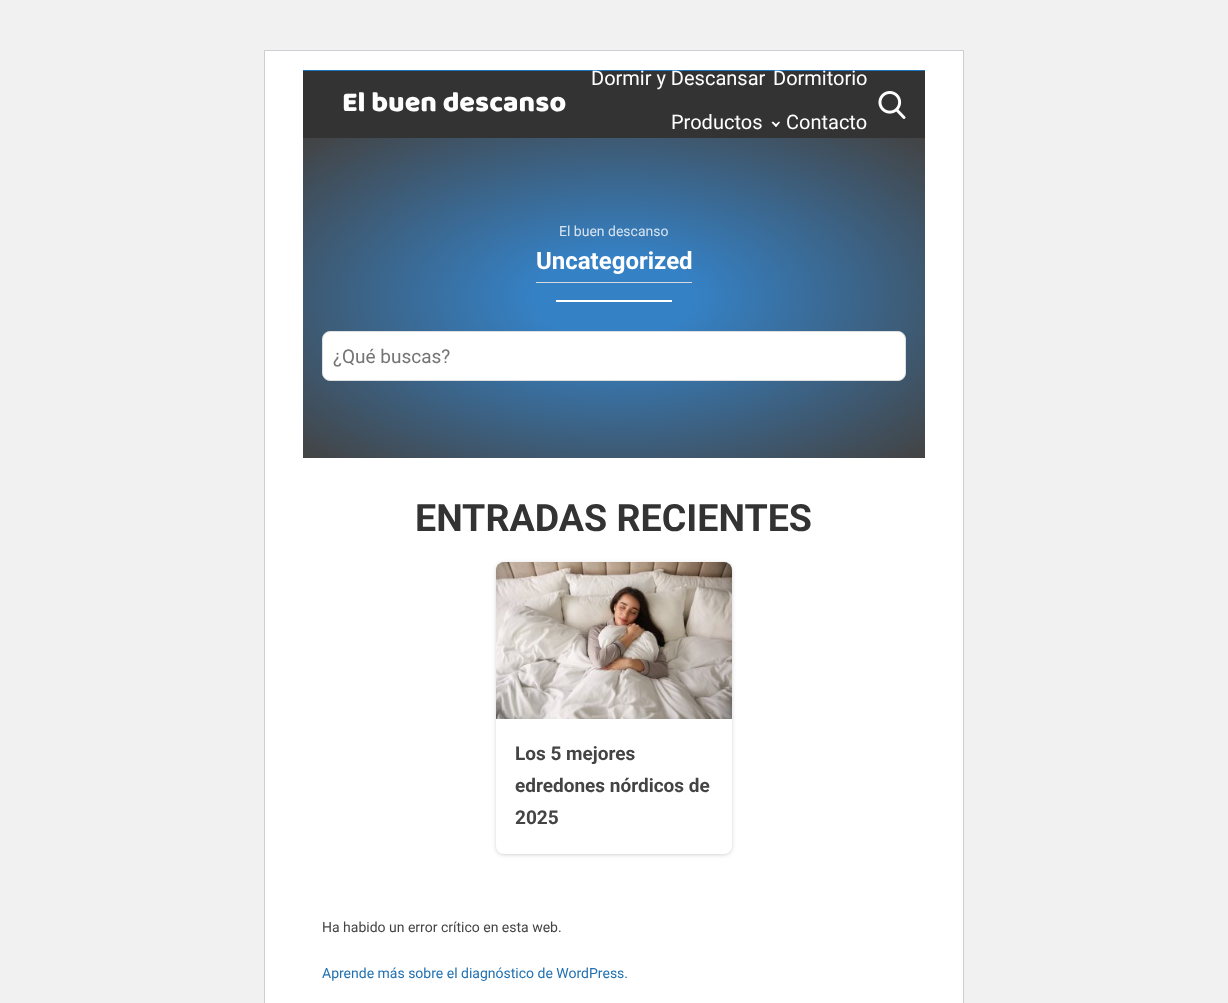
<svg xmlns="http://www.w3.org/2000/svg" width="1228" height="1003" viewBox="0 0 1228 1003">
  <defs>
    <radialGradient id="g1" gradientUnits="userSpaceOnUse" cx="0" cy="0" r="1" gradientTransform="matrix(440 0 0 226 614 298)"><stop offset="0.18" stop-color="#3581c5"/><stop offset="1" stop-color="#434343"/></radialGradient>
    <filter id="blur1" x="-50%" y="-200%" width="200%" height="500%"><feGaussianBlur stdDeviation="2.5"/></filter>
  </defs>
  <rect width="100%" height="100%" fill="#f1f1f1"/>
  <rect x="264.5" y="50.5" width="699" height="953" fill="#ffffff" stroke="#ccd0d4"/>
  <rect x="303" y="71" width="622" height="67" fill="#333333"/>
  <rect x="303" y="70" width="622" height="1" fill="#1e73be"/>
  <text x="342" y="111" font-family="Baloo" font-size="28.5" fill="#ffffff">El buen descanso</text>
  <text x="591" y="85" font-family="Roboto" font-size="20" fill="#ffffff">Dormir y Descansar</text>
  <text x="773" y="85" font-family="Roboto" font-size="20" fill="#ffffff">Dormitorio</text>
  <text x="671" y="129" font-family="Roboto" font-size="20" fill="#ffffff">Productos</text>
  <path d="M779 121.5L780 122.5L776 127L774.5 125.5Z" fill="#ffffff"/>
  <path d="M773 121.5L777.5 125.5L776 127L771.5 122.5Z" fill="#ffffff"/>
  <text x="786" y="129" font-family="Roboto" font-size="20" fill="#ffffff">Contacto</text>
  <image x="878" y="91" width="28" height="28" href="img1.png"/>
  <rect x="303" y="138" width="622" height="320" fill="url(#g1)"/>
  <text x="559" y="236" font-family="Roboto" font-size="14" fill="#d7e4f0">El buen descanso</text>
  <rect x="536" y="282" width="156" height="1" fill="#dadada"/>
  <text x="536" y="269" font-family="Roboto" font-size="24" font-weight="bold" fill="#ffffff">Uncategorized</text>
  <rect x="556" y="300" width="116" height="2" fill="#ffffff"/>
  <rect x="322.5" y="331.5" width="583" height="49" rx="7.5" fill="#ffffff" stroke="#dedede"/>
  <text x="333" y="363" font-family="Roboto" font-size="19" fill="#757575">¿Qué buscas?</text>
  <text x="415" y="531" font-family="Roboto" font-size="37.6" font-weight="bold" fill="#333333">ENTRADAS RECIENTES</text>
  <rect x="497" y="564" width="234" height="290" rx="7" fill="#000000" fill-opacity="0.25" filter="url(#blur1)"/>
  <rect x="496" y="562" width="236" height="292" rx="8" fill="#ffffff"/>
  <image x="496" y="562" width="236" height="157" href="img2.png"/>
  <text x="515" y="760" font-family="Roboto" font-size="19" font-weight="bold" fill="#444444">Los 5 mejores</text>
  <text x="515" y="792" font-family="Roboto" font-size="19" font-weight="bold" fill="#444444">edredones nórdicos de</text>
  <text x="515" y="824" font-family="Roboto" font-size="19" font-weight="bold" fill="#444444">2025</text>
  <text x="322" y="932" font-family="Roboto" font-size="14" fill="#444444">Ha habido un error crítico en esta web.</text>
  <text x="322" y="978" font-family="Roboto" font-size="14" fill="#2271b1">Aprende más sobre el diagnóstico de WordPress.</text>
</svg>
